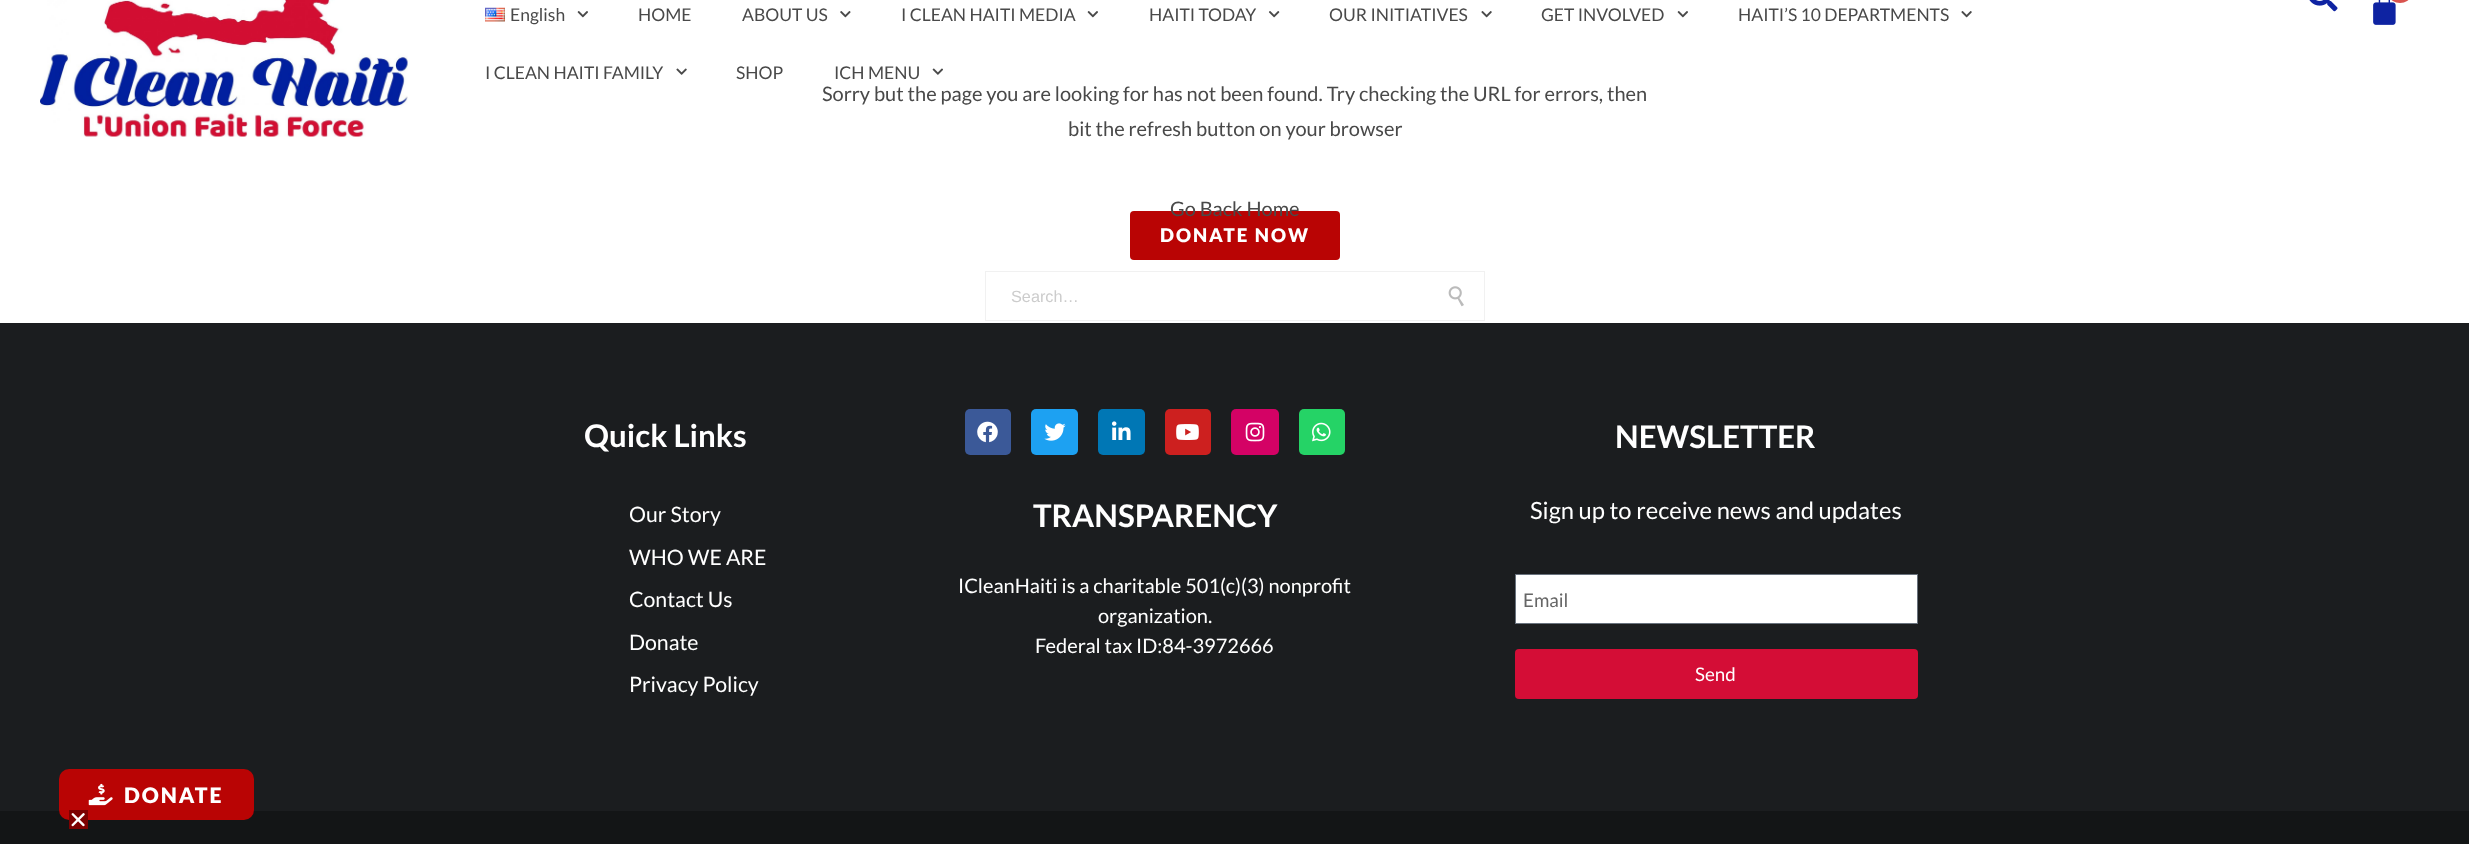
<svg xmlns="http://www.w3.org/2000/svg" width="2469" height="844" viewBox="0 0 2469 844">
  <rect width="100%" height="100%" fill="#ffffff"/>
  <image x="40" y="0" width="368" height="137" href="img1.png"/>
  <image x="485" y="7" width="20" height="15" href="img2.png"/>
  <text x="510" y="21" font-family="Lato" font-size="17.5" fill="#494949">English</text>
  <image x="577" y="11" width="11" height="7" href="img3.png"/>
  <text x="638" y="21" font-family="Lato" font-size="17.5" fill="#494949">HOME</text>
  <text x="742" y="21" font-family="Lato" font-size="17.5" fill="#494949">ABOUT US</text>
  <image x="840" y="11" width="11" height="7" href="img4.png"/>
  <text x="901" y="21" font-family="Lato" font-size="17.5" fill="#494949">I CLEAN HAITI MEDIA</text>
  <image x="1087" y="11" width="11" height="7" href="img3.png"/>
  <text x="1149" y="21" font-family="Lato" font-size="17.5" fill="#494949">HAITI TODAY</text>
  <image x="1268" y="11" width="12" height="7" href="img5.png"/>
  <text x="1329" y="21" font-family="Lato" font-size="17.5" fill="#494949">OUR INITIATIVES</text>
  <image x="1481" y="11" width="11" height="7" href="img6.png"/>
  <text x="1541" y="21" font-family="Lato" font-size="17.5" fill="#494949">GET INVOLVED</text>
  <image x="1677" y="11" width="11" height="7" href="img3.png"/>
  <text x="1738" y="21" font-family="Lato" font-size="17.5" fill="#494949">HAITI’S 10 DEPARTMENTS</text>
  <image x="1961" y="11" width="11" height="7" href="img6.png"/>
  <text x="485" y="79" font-family="Lato" font-size="17.5" fill="#494949">I CLEAN HAITI FAMILY</text>
  <image x="676" y="68" width="11" height="7" href="img7.png"/>
  <text x="736" y="79" font-family="Lato" font-size="17.5" fill="#494949">SHOP</text>
  <text x="834" y="79" font-family="Lato" font-size="17.5" fill="#494949">ICH MENU</text>
  <image x="932" y="68" width="11" height="7" href="img8.png"/>
  <image x="2309" y="0" width="29" height="12" href="img9.png"/>
  <image x="2373" y="0" width="23" height="25" href="img10.png"/>
  <rect x="2390" y="-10" width="20" height="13" rx="10" fill="#d9534f"/>
  <text x="822" y="101" font-family="Lato" font-size="20" fill="#494949">Sorry but the page you are looking for has not been found. Try checking the URL for errors, then</text>
  <text x="1068" y="136" font-family="Lato" font-size="20" fill="#494949">bit the refresh button on your browser</text>
  <rect x="1130" y="211" width="210" height="49" rx="4" fill="#b90404"/>
  <text x="1170" y="216" font-family="Lato" font-size="20" fill="#494949">Go Back Home</text>
  <rect x="985.5" y="271.5" width="499" height="49" fill="none" stroke="#f1f1f1"/>
  <text x="1011" y="302" font-family="Liberation Sans" font-size="16.25" fill="#cccccc">Search…</text>
  <image x="1448" y="286" width="16" height="21" href="img11.png"/>
  <text x="1160" y="242" font-family="Lato" font-size="18.75" font-weight="900" letter-spacing="2" fill="#ffffff">DONATE NOW</text>
  <rect x="0" y="323" width="2469" height="488" fill="#1b1d1f"/>
  <text x="584" y="447" font-family="Lato" font-size="31.25" font-weight="bold" fill="#ffffff">Quick Links</text>
  <text x="629" y="522" font-family="Lato" font-size="21.25" fill="#ffffff">Our Story</text>
  <text x="629" y="565" font-family="Lato" font-size="21.25" fill="#ffffff">WHO WE ARE</text>
  <text x="629" y="607" font-family="Lato" font-size="21.25" fill="#ffffff">Contact Us</text>
  <text x="629" y="650" font-family="Lato" font-size="21.25" fill="#ffffff">Donate</text>
  <text x="629" y="692" font-family="Lato" font-size="21.25" fill="#ffffff">Privacy Policy</text>
  <rect x="965" y="409" width="46" height="46" rx="5" fill="#3b5998"/>
  <image x="977" y="421" width="21" height="22" href="img12.png"/>
  <rect x="1031" y="409" width="47" height="46" rx="5" fill="#1da1f2"/>
  <image x="1044" y="423" width="22" height="18" href="img13.png"/>
  <rect x="1098" y="409" width="47" height="46" rx="5" fill="#0077b5"/>
  <image x="1112" y="421" width="19" height="19" href="img14.png"/>
  <rect x="1165" y="409" width="46" height="46" rx="5" fill="#cd201f"/>
  <image x="1176" y="424" width="23" height="16" href="img15.png"/>
  <rect x="1231" y="409" width="48" height="46" rx="5" fill="#d40265"/>
  <image x="1245" y="422" width="20" height="20" href="img16.png"/>
  <rect x="1299" y="409" width="46" height="46" rx="5" fill="#25d366"/>
  <image x="1312" y="422" width="19" height="20" href="img17.png"/>
  <text x="1033" y="527" font-family="Lato" font-size="31.25" font-weight="bold" fill="#ffffff">TRANSPARENCY</text>
  <text x="958" y="593" font-family="Lato" font-size="20" fill="#ffffff">ICleanHaiti is a charitable 501(c)(3) nonprofit</text>
  <text x="1098" y="623" font-family="Lato" font-size="20" fill="#ffffff">organization.</text>
  <text x="1035" y="653" font-family="Lato" font-size="20" fill="#ffffff">Federal tax ID:84-3972666</text>
  <text x="1615" y="448" font-family="Lato" font-size="31.25" font-weight="bold" fill="#ffffff">NEWSLETTER</text>
  <text x="1530" y="519" font-family="Lato" font-size="23.75" fill="#ffffff">Sign up to receive news and updates</text>
  <rect x="1515.5" y="574.5" width="402" height="49" fill="#ffffff" stroke="#69727d"/>
  <text x="1523" y="607" font-family="Lato" font-size="18.75" fill="#666666">Email</text>
  <rect x="1515" y="649" width="403" height="50" rx="4" fill="#d40d36"/>
  <text x="1695" y="681" font-family="Lato" font-size="18.75" fill="#ffffff">Send</text>
  <rect x="0" y="811" width="2469" height="33" fill="#131516"/>
  <rect x="59" y="769" width="195" height="51" rx="10" fill="#b90404"/>
  <image x="88" y="783" width="25" height="23" href="img18.png"/>
  <text x="124" y="803" font-family="Lato" font-size="21.25" font-weight="900" letter-spacing="2" fill="#ffffff">DONATE</text>
  <rect x="69" y="810" width="19" height="19" fill="#7d0101"/>
  <image x="71" y="813" width="14" height="14" href="img19.png"/>
</svg>
